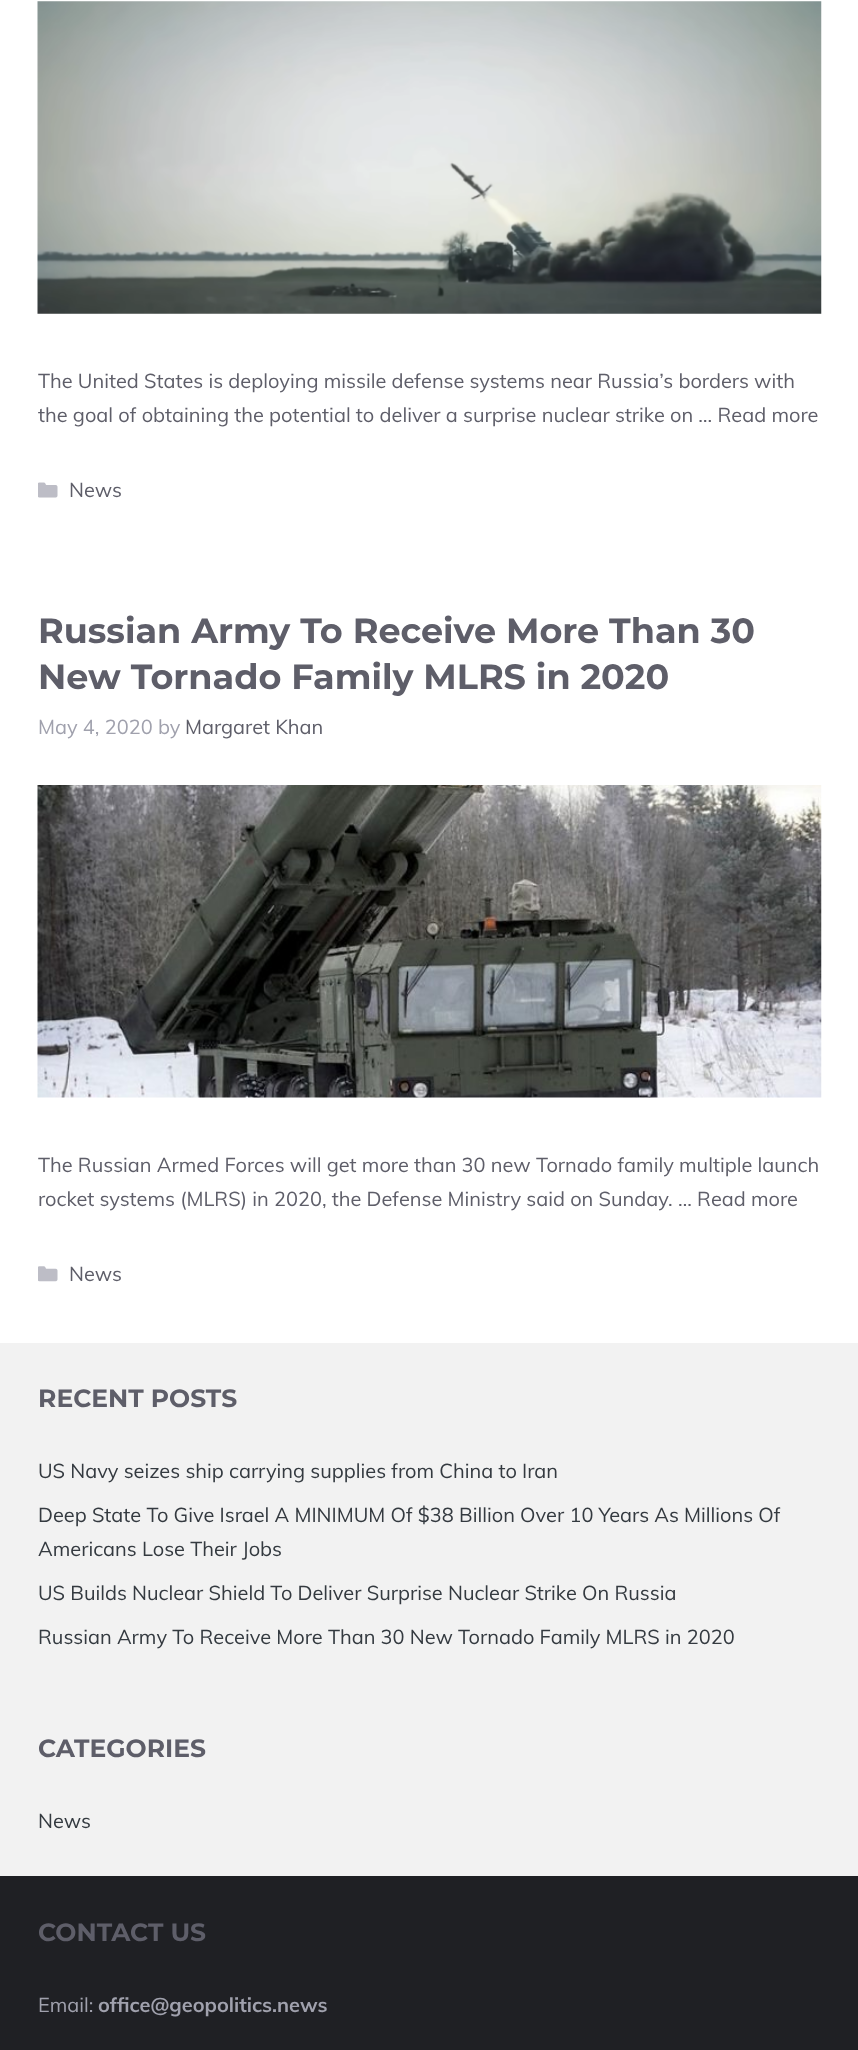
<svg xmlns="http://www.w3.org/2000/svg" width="858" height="2050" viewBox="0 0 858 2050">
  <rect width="100%" height="100%" fill="#ffffff"/>
  <image x="37" y="1" width="785" height="313" href="img1.png"/>
  <text x="38" y="388" font-family="Muli" font-size="20" fill="#5e5e69">The United States is deploying missile defense systems near Russia’s borders with</text>
  <text x="38" y="422" font-family="Muli" font-size="20" fill="#5e5e69">the goal of obtaining the potential to deliver a surprise nuclear strike on … Read more</text>
  <image x="38" y="482" width="20" height="16" href="img2.png"/>
  <text x="69" y="497" font-family="Muli" font-size="20" fill="#5e5e69">News</text>
  <text x="38" y="643" font-family="Montserrat" font-size="35" font-weight="bold" fill="#5e5e69">Russian Army To Receive More Than 30</text>
  <text x="38" y="689" font-family="Montserrat" font-size="35" font-weight="bold" fill="#5e5e69">New Tornado Family MLRS in 2020</text>
  <text x="38" y="734" font-family="Muli" font-size="20" fill="#a0a1ad">May 4, 2020 by</text>
  <text x="185" y="734" font-family="Muli" font-size="20" fill="#5e5e69">Margaret Khan</text>
  <image x="37" y="785" width="785" height="313" href="img3.png"/>
  <text x="38" y="1172" font-family="Muli" font-size="20" fill="#5e5e69">The Russian Armed Forces will get more than 30 new Tornado family multiple launch</text>
  <text x="38" y="1206" font-family="Muli" font-size="20" fill="#5e5e69">rocket systems (MLRS) in 2020, the Defense Ministry said on Sunday. … Read more</text>
  <image x="38" y="1266" width="20" height="16" href="img4.png"/>
  <text x="69" y="1281" font-family="Muli" font-size="20" fill="#5e5e69">News</text>
  <rect x="0" y="1343" width="858" height="533" fill="#f2f2f2"/>
  <text x="38" y="1407" font-family="Montserrat" font-size="25" font-weight="bold" fill="#5e5e69">RECENT POSTS</text>
  <text x="38" y="1478" font-family="Muli" font-size="20" fill="#343a40">US Navy seizes ship carrying supplies from China to Iran</text>
  <text x="38" y="1522" font-family="Muli" font-size="20" fill="#343a40">Deep State To Give Israel A MINIMUM Of $38 Billion Over 10 Years As Millions Of</text>
  <text x="38" y="1556" font-family="Muli" font-size="20" fill="#343a40">Americans Lose Their Jobs</text>
  <text x="38" y="1600" font-family="Muli" font-size="20" fill="#343a40">US Builds Nuclear Shield To Deliver Surprise Nuclear Strike On Russia</text>
  <text x="38" y="1644" font-family="Muli" font-size="20" fill="#343a40">Russian Army To Receive More Than 30 New Tornado Family MLRS in 2020</text>
  <text x="38" y="1757" font-family="Montserrat" font-size="25" font-weight="bold" fill="#5e5e69">CATEGORIES</text>
  <text x="38" y="1828" font-family="Muli" font-size="20" fill="#343a40">News</text>
  <rect x="0" y="1876" width="858" height="174" fill="#1f2024"/>
  <text x="38" y="1941" font-family="Montserrat" font-size="25" font-weight="bold" fill="#5e5e69">CONTACT US</text>
  <text x="38" y="2012" font-family="Muli" font-size="20" fill="#a0a1ad">Email:</text>
  <text x="98" y="2012" font-family="Muli" font-size="20" font-weight="bold" fill="#a0a1ad">office@geopolitics.news</text>
</svg>
